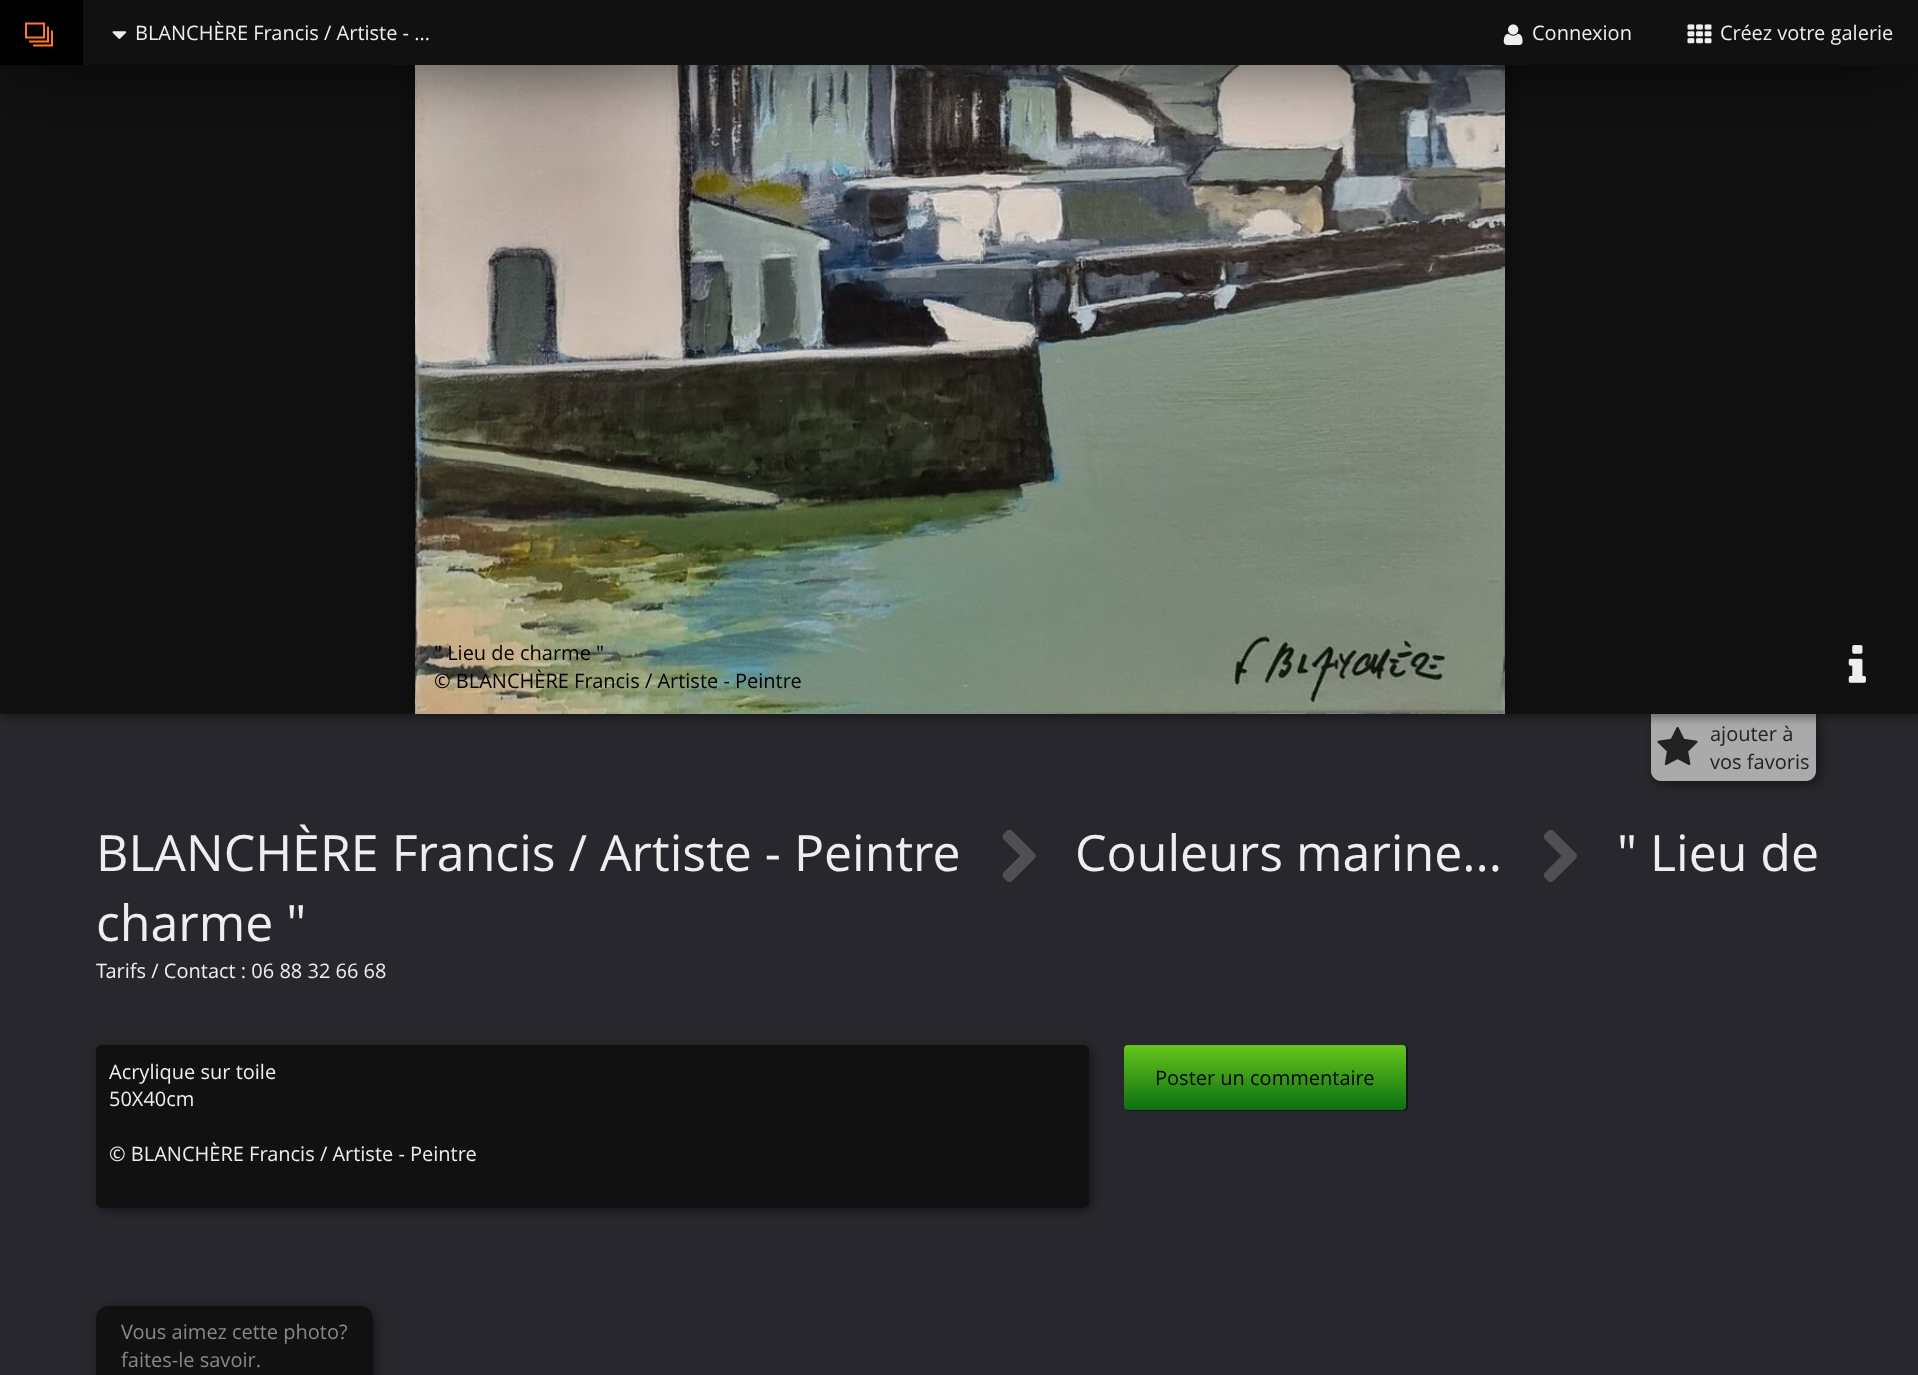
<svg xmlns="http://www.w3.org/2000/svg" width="1918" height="1375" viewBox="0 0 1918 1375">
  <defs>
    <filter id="blur1" x="-50%" y="-200%" width="200%" height="500%"><feGaussianBlur stdDeviation="6"/></filter>
    <clipPath id="clip1"><rect x="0" y="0" width="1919" height="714"/></clipPath>
    <filter id="blur2" x="-50%" y="-200%" width="200%" height="500%"><feGaussianBlur stdDeviation="12.5"/></filter>
    <filter id="blur3" x="-50%" y="-200%" width="200%" height="500%"><feGaussianBlur stdDeviation="37.5"/></filter>
    <filter id="blur4" x="-50%" y="-200%" width="200%" height="500%"><feGaussianBlur stdDeviation="0.5"/></filter>
    <linearGradient id="g1" gradientUnits="userSpaceOnUse" x1="1265" y1="1045" x2="1265" y2="1110"><stop offset="0" stop-color="#67c51a"/><stop offset="1" stop-color="#0b7113"/></linearGradient>
  </defs>
  <rect width="100%" height="100%" fill="#28272d"/>
  <rect x="1654" y="716" width="165" height="68" rx="10" fill="#000000" fill-opacity="0.5" filter="url(#blur1)"/>
  <path d="M1651 714H1816V771C1816 776.5 1811.5 781 1806 781H1661C1655.5 781 1651 776.5 1651 771Z" fill="#aaaaaa"/>
  <image x="1657" y="727" width="41" height="39" href="img7.png"/>
  <rect x="3" y="-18" width="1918" height="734" fill="#000000" fill-opacity="0.5" filter="url(#blur1)"/>
  <rect x="0" y="65" width="1918" height="649" fill="#111111"/>
  <g clip-path="url(#clip1)">
    <rect x="415" y="-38" width="1090" height="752" fill="#000000" fill-opacity="0.5" filter="url(#blur2)"/>
  </g>
  <image x="415" y="65" width="1090" height="649" href="img5.png"/>
  <rect x="0" y="0" width="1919" height="65" fill="#000000" fill-opacity="0.7" filter="url(#blur3)"/>
  <rect x="83" y="0" width="1835" height="65" fill="#111111"/>
  <rect x="0" y="0" width="83" height="65" fill="#000000"/>
  <image x="25" y="22" width="28" height="25" href="img1.png"/>
  <image x="112" y="31" width="15" height="8" href="img2.png"/>
  <text x="135" y="40" font-family="Open Sans" font-size="20" fill="#eeeeee">BLANCHÈRE Francis / Artiste - …</text>
  <image x="1503" y="24" width="20" height="21" href="img3.png"/>
  <text x="1532" y="40" font-family="Open Sans" font-size="20" fill="#eeeeee">Connexion</text>
  <image x="1687" y="24" width="25" height="20" href="img4.png"/>
  <text x="1720" y="40" font-family="Open Sans" font-size="20" fill="#eeeeee">Créez votre galerie</text>
  <text x="434" y="660" font-family="Open Sans" font-size="20" fill="#000000">" Lieu de charme "</text>
  <text x="434" y="688" font-family="Open Sans" font-size="20" fill="#000000">© BLANCHÈRE Francis / Artiste - Peintre</text>
  <image x="1848" y="645" width="18" height="38" href="img6.png"/>
  <text x="1710" y="741" font-family="Open Sans" font-size="20" fill="#222222">ajouter à</text>
  <text x="1710" y="769" font-family="Open Sans" font-size="20" fill="#222222">vos favoris</text>
  <text x="96" y="871" font-family="Open Sans" font-size="50" fill="#eeeeee">BLANCHÈRE Francis / Artiste - Peintre</text>
  <image x="1002" y="829" width="34" height="53" href="img8.png"/>
  <text x="1075" y="871" font-family="Open Sans" font-size="50" fill="#eeeeee">Couleurs marine...</text>
  <image x="1543" y="829" width="34" height="53" href="img9.png"/>
  <text x="1617" y="871" font-family="Open Sans" font-size="50" fill="#eeeeee">" Lieu de</text>
  <text x="96" y="941" font-family="Open Sans" font-size="50" fill="#eeeeee">charme "</text>
  <text x="96" y="978" font-family="Open Sans" font-size="20" fill="#eeeeee">Tarifs / Contact : 06 88 32 66 68</text>
  <rect x="99" y="1048" width="992" height="162" rx="6" fill="#000000" fill-opacity="0.5" filter="url(#blur1)"/>
  <rect x="96" y="1045" width="993" height="163" rx="6" fill="#111111"/>
  <text x="109" y="1079" font-family="Open Sans" font-size="20" fill="#eeeeee">Acrylique sur toile</text>
  <text x="109" y="1106" font-family="Open Sans" font-size="20" fill="#eeeeee">50X40cm</text>
  <text x="109" y="1161" font-family="Open Sans" font-size="20" fill="#eeeeee">© BLANCHÈRE Francis / Artiste - Peintre</text>
  <rect x="1125" y="1046" width="283" height="65" rx="4" fill="#000000" fill-opacity="0.5" filter="url(#blur4)"/>
  <rect x="1124" y="1045" width="282" height="65" rx="4" fill="url(#g1)"/>
  <text x="1155" y="1085" font-family="Open Sans" font-size="20" fill="#000000">Poster un commentaire</text>
  <rect x="99" y="1309" width="276" height="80" rx="13" fill="#000000" fill-opacity="0.5" filter="url(#blur1)"/>
  <rect x="96" y="1306" width="277" height="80" rx="13" fill="#111111"/>
  <text x="121" y="1339" font-family="Open Sans" font-size="20" fill="#888888">Vous aimez cette photo?</text>
  <text x="121" y="1367" font-family="Open Sans" font-size="20" fill="#888888">faites-le savoir.</text>
</svg>
